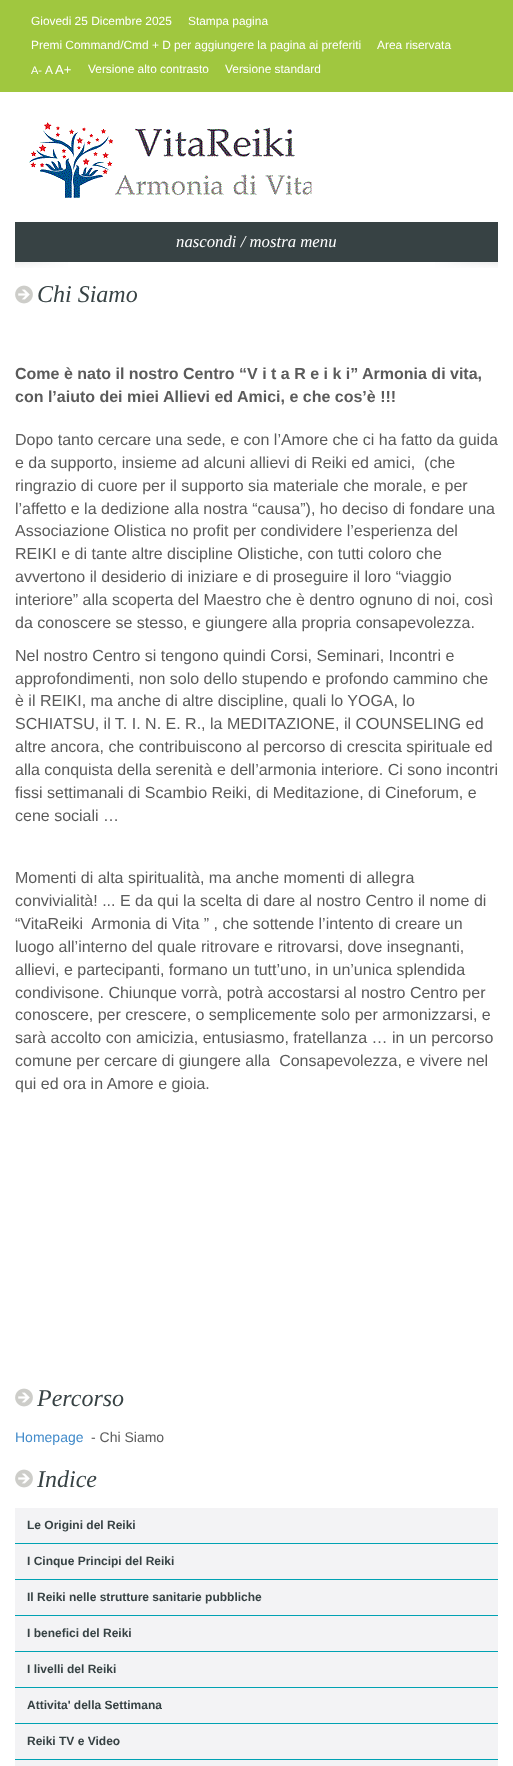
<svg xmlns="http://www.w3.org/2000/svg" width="513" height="1766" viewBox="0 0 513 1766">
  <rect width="100%" height="100%" fill="#a0c73f"/>
  <text x="31" y="25" font-family="Liberation Sans" font-size="11.9" fill="#ffffff">Giovedi 25 Dicembre 2025</text>
  <text x="188" y="25" font-family="Liberation Sans" font-size="11.9" fill="#ffffff">Stampa pagina</text>
  <text x="31" y="49" font-family="Liberation Sans" font-size="11.9" fill="#ffffff">Premi Command/Cmd + D per aggiungere la pagina ai preferiti</text>
  <text x="377" y="49" font-family="Liberation Sans" font-size="11.9" fill="#ffffff">Area riservata</text>
  <text x="31" y="74" font-family="Liberation Sans" font-size="11" fill="#ffffff">A-</text>
  <text x="45" y="74" font-family="Liberation Sans" font-size="11.9" fill="#ffffff">A</text>
  <text x="55" y="74" font-family="Liberation Sans" font-size="13" fill="#ffffff">A+</text>
  <text x="88" y="73" font-family="Liberation Sans" font-size="11.9" fill="#ffffff">Versione alto contrasto</text>
  <text x="225" y="73" font-family="Liberation Sans" font-size="11.9" fill="#ffffff">Versione standard</text>
  <rect x="0" y="92" width="513" height="1674" fill="#ffffff"/>
  <image x="29" y="122" width="283" height="76" href="img1.png"/>
  <rect x="15" y="222" width="483" height="40" fill="#374244"/>
  <text x="176" y="247" font-family="Liberation Serif" font-size="16.75" font-style="italic" fill="#ffffff">nascondi / mostra menu</text>
  <image x="15" y="262" width="483" height="6" href="img2.png"/>
  <image x="15" y="285" width="18" height="19" href="img3.png"/>
  <text x="37" y="302" font-family="Liberation Serif" font-size="24" font-style="italic" fill="#374244">Chi Siamo</text>
  <text x="15" y="379" font-family="Liberation Sans" font-size="16" font-weight="bold" fill="#5b5b5b">Come è nato il nostro Centro “V i t a R e i k i” Armonia di vita,</text>
  <text x="15" y="402" font-family="Liberation Sans" font-size="16" font-weight="bold" fill="#5b5b5b">con l’aiuto dei miei Allievi ed Amici, e che cos’è !!!</text>
  <text x="15" y="445" font-family="Liberation Sans" font-size="16" fill="#5b5b5b">Dopo tanto cercare una sede, e con l’Amore che ci ha fatto da guida</text>
  <text x="15" y="468" font-family="Liberation Sans" font-size="16" fill="#5b5b5b" xml:space="preserve">e da supporto, insieme ad alcuni allievi di Reiki ed amici,  (che</text>
  <text x="15" y="491" font-family="Liberation Sans" font-size="16" fill="#5b5b5b">ringrazio di cuore per il supporto sia materiale che morale, e per</text>
  <text x="15" y="514" font-family="Liberation Sans" font-size="16" fill="#5b5b5b">l’affetto e la dedizione alla nostra “causa”), ho deciso di fondare una</text>
  <text x="15" y="536" font-family="Liberation Sans" font-size="16" fill="#5b5b5b">Associazione Olistica no profit per condividere l’esperienza del</text>
  <text x="15" y="559" font-family="Liberation Sans" font-size="16" fill="#5b5b5b">REIKI e di tante altre discipline Olistiche, con tutti coloro che</text>
  <text x="15" y="582" font-family="Liberation Sans" font-size="16" fill="#5b5b5b">avvertono il desiderio di iniziare e di proseguire il loro “viaggio</text>
  <text x="15" y="605" font-family="Liberation Sans" font-size="16" fill="#5b5b5b">interiore” alla scoperta del Maestro che è dentro ognuno di noi, così</text>
  <text x="15" y="628" font-family="Liberation Sans" font-size="16" fill="#5b5b5b">da conoscere se stesso, e giungere alla propria consapevolezza.</text>
  <text x="15" y="661" font-family="Liberation Sans" font-size="16" fill="#5b5b5b">Nel nostro Centro si tengono quindi Corsi, Seminari, Incontri e</text>
  <text x="15" y="684" font-family="Liberation Sans" font-size="16" fill="#5b5b5b">approfondimenti, non solo dello stupendo e profondo cammino che</text>
  <text x="15" y="706" font-family="Liberation Sans" font-size="16" fill="#5b5b5b">è il REIKI, ma anche di altre discipline, quali lo YOGA, lo</text>
  <text x="15" y="729" font-family="Liberation Sans" font-size="16" fill="#5b5b5b">SCHIATSU, il T. I. N. E. R., la MEDITAZIONE, il COUNSELING ed</text>
  <text x="15" y="752" font-family="Liberation Sans" font-size="16" fill="#5b5b5b">altre ancora, che contribuiscono al percorso di crescita spirituale ed</text>
  <text x="15" y="775" font-family="Liberation Sans" font-size="16" fill="#5b5b5b">alla conquista della serenità e dell’armonia interiore. Ci sono incontri</text>
  <text x="15" y="798" font-family="Liberation Sans" font-size="16" fill="#5b5b5b">fissi settimanali di Scambio Reiki, di Meditazione, di Cineforum, e</text>
  <text x="15" y="821" font-family="Liberation Sans" font-size="16" fill="#5b5b5b">cene sociali …</text>
  <text x="15" y="883" font-family="Liberation Sans" font-size="16" fill="#5b5b5b">Momenti di alta spiritualità, ma anche momenti di allegra</text>
  <text x="15" y="906" font-family="Liberation Sans" font-size="16" fill="#5b5b5b">convivialità! ... E da qui la scelta di dare al nostro Centro il nome di</text>
  <text x="15" y="929" font-family="Liberation Sans" font-size="16" fill="#5b5b5b" xml:space="preserve">“VitaReiki  Armonia di Vita ” , che sottende l’intento di creare un</text>
  <text x="15" y="952" font-family="Liberation Sans" font-size="16" fill="#5b5b5b">luogo all’interno del quale ritrovare e ritrovarsi, dove insegnanti,</text>
  <text x="15" y="975" font-family="Liberation Sans" font-size="16" fill="#5b5b5b">allievi, e partecipanti, formano un tutt’uno, in un’unica splendida</text>
  <text x="15" y="998" font-family="Liberation Sans" font-size="16" fill="#5b5b5b">condivisone. Chiunque vorrà, potrà accostarsi al nostro Centro per</text>
  <text x="15" y="1020" font-family="Liberation Sans" font-size="16" fill="#5b5b5b">conoscere, per crescere, o semplicemente solo per armonizzarsi, e</text>
  <text x="15" y="1043" font-family="Liberation Sans" font-size="16" fill="#5b5b5b">sarà accolto con amicizia, entusiasmo, fratellanza … in un percorso</text>
  <text x="15" y="1066" font-family="Liberation Sans" font-size="16" fill="#5b5b5b" xml:space="preserve">comune per cercare di giungere alla  Consapevolezza, e vivere nel</text>
  <text x="15" y="1089" font-family="Liberation Sans" font-size="16" fill="#5b5b5b">qui ed ora in Amore e gioia.</text>
  <image x="15" y="1388" width="18" height="19" href="img3.png"/>
  <text x="37" y="1406" font-family="Liberation Serif" font-size="24" font-style="italic" fill="#374244">Percorso</text>
  <text x="15" y="1442" font-family="Liberation Sans" font-size="14" fill="#428bca">Homepage</text>
  <text x="91" y="1442" font-family="Liberation Sans" font-size="14" fill="#5b5b5b">- Chi Siamo</text>
  <image x="15" y="1469" width="18" height="19" href="img3.png"/>
  <text x="37" y="1487" font-family="Liberation Serif" font-size="24" font-style="italic" fill="#374244">Indice</text>
  <rect x="15" y="1508" width="483" height="35" fill="#f3f3f5"/>
  <rect x="15" y="1543" width="483" height="1" fill="#00a2b3"/>
  <text x="27" y="1529" font-family="Liberation Sans" font-size="12" font-weight="bold" fill="#374244">Le Origini del Reiki</text>
  <rect x="15" y="1544" width="483" height="35" fill="#f3f3f5"/>
  <rect x="15" y="1579" width="483" height="1" fill="#00a2b3"/>
  <text x="27" y="1565" font-family="Liberation Sans" font-size="12" font-weight="bold" fill="#374244">I Cinque Principi del Reiki</text>
  <rect x="15" y="1580" width="483" height="35" fill="#f3f3f5"/>
  <rect x="15" y="1615" width="483" height="1" fill="#00a2b3"/>
  <text x="27" y="1601" font-family="Liberation Sans" font-size="12" font-weight="bold" fill="#374244">Il Reiki nelle strutture sanitarie pubbliche</text>
  <rect x="15" y="1616" width="483" height="35" fill="#f3f3f5"/>
  <rect x="15" y="1651" width="483" height="1" fill="#00a2b3"/>
  <text x="27" y="1637" font-family="Liberation Sans" font-size="12" font-weight="bold" fill="#374244">I benefici del Reiki</text>
  <rect x="15" y="1652" width="483" height="35" fill="#f3f3f5"/>
  <rect x="15" y="1687" width="483" height="1" fill="#00a2b3"/>
  <text x="27" y="1673" font-family="Liberation Sans" font-size="12" font-weight="bold" fill="#374244">I livelli del Reiki</text>
  <rect x="15" y="1688" width="483" height="35" fill="#f3f3f5"/>
  <rect x="15" y="1723" width="483" height="1" fill="#00a2b3"/>
  <text x="27" y="1709" font-family="Liberation Sans" font-size="12" font-weight="bold" fill="#374244">Attivita' della Settimana</text>
  <rect x="15" y="1724" width="483" height="35" fill="#f3f3f5"/>
  <rect x="15" y="1759" width="483" height="1" fill="#00a2b3"/>
  <text x="27" y="1745" font-family="Liberation Sans" font-size="12" font-weight="bold" fill="#374244">Reiki TV e Video</text>
  <rect x="15" y="1760" width="483" height="6" fill="#f3f3f5"/>
</svg>
